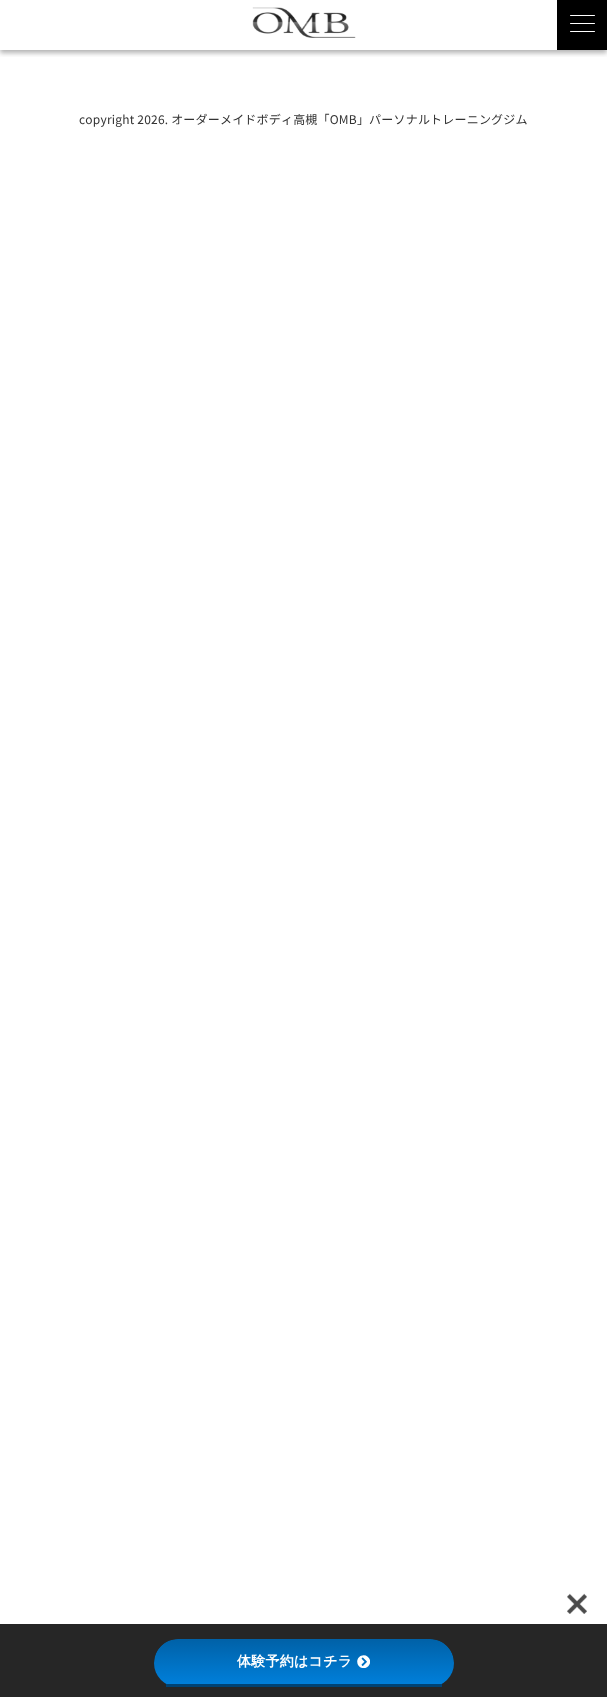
<svg xmlns="http://www.w3.org/2000/svg" width="607" height="1697" viewBox="0 0 607 1697">
  <style>*{font-kerning:none!important;font-variant-ligatures:none!important}</style>
  <defs>
    <clipPath id="clip1"><rect x="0" y="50" width="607" height="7"/></clipPath>
    <filter id="blur1" x="-50%" y="-200%" width="200%" height="500%"><feGaussianBlur stdDeviation="2.5"/></filter>
    <clipPath id="clip2"><rect x="154" y="1639" width="300" height="48" rx="24"/></clipPath>
    <linearGradient id="g1" gradientUnits="userSpaceOnUse" x1="304" y1="1639" x2="304" y2="1684"><stop offset="0" stop-color="#0061a7"/><stop offset="1" stop-color="#007fda"/></linearGradient>
  </defs>
  <rect width="100%" height="100%" fill="#ffffff"/>
  <g clip-path="url(#clip1)">
    <rect x="0" y="3" width="607" height="50" fill="#000000" fill-opacity="0.3" filter="url(#blur1)"/>
  </g>
  <image x="252" y="7" width="104" height="31" href="img1.png"/>
  <rect x="557" y="0" width="50" height="50" fill="#000000"/>
  <rect x="570" y="15" width="25" height="1" rx="0.5" fill="#ffffff"/>
  <rect x="570" y="23" width="25" height="1" rx="0.5" fill="#ffffff"/>
  <rect x="570" y="31" width="25" height="1" rx="0.5" fill="#ffffff"/>
  <text x="79" y="124" font-family="Noto Sans JP" font-size="12" letter-spacing="0.2" fill="#333333">copyright 2026. オーダーメイドボディ高槻「OMB」パーソナルトレーニングジム</text>
  <rect x="0" y="1624" width="607" height="73" fill="#262626"/>
  <image x="567" y="1593" width="20" height="21" href="img2.png"/>
  <g clip-path="url(#clip2)">
    <path d="M178 1639H430C443.5 1639 454 1649.5 454 1663V1684H154V1663C154 1649.5 164.5 1639 178 1639Z" fill="url(#g1)"/>
  </g>
  <rect x="166" y="1684" width="276" height="3" fill="#004374"/>
  <text x="237" y="1666" font-family="WenQuanYi Zen Hei" font-size="14" font-weight="bold" letter-spacing="0.25" fill="#ffffff">体験予約はコチラ</text>
  <image x="357" y="1655" width="13" height="13" href="img3.png"/>
</svg>
